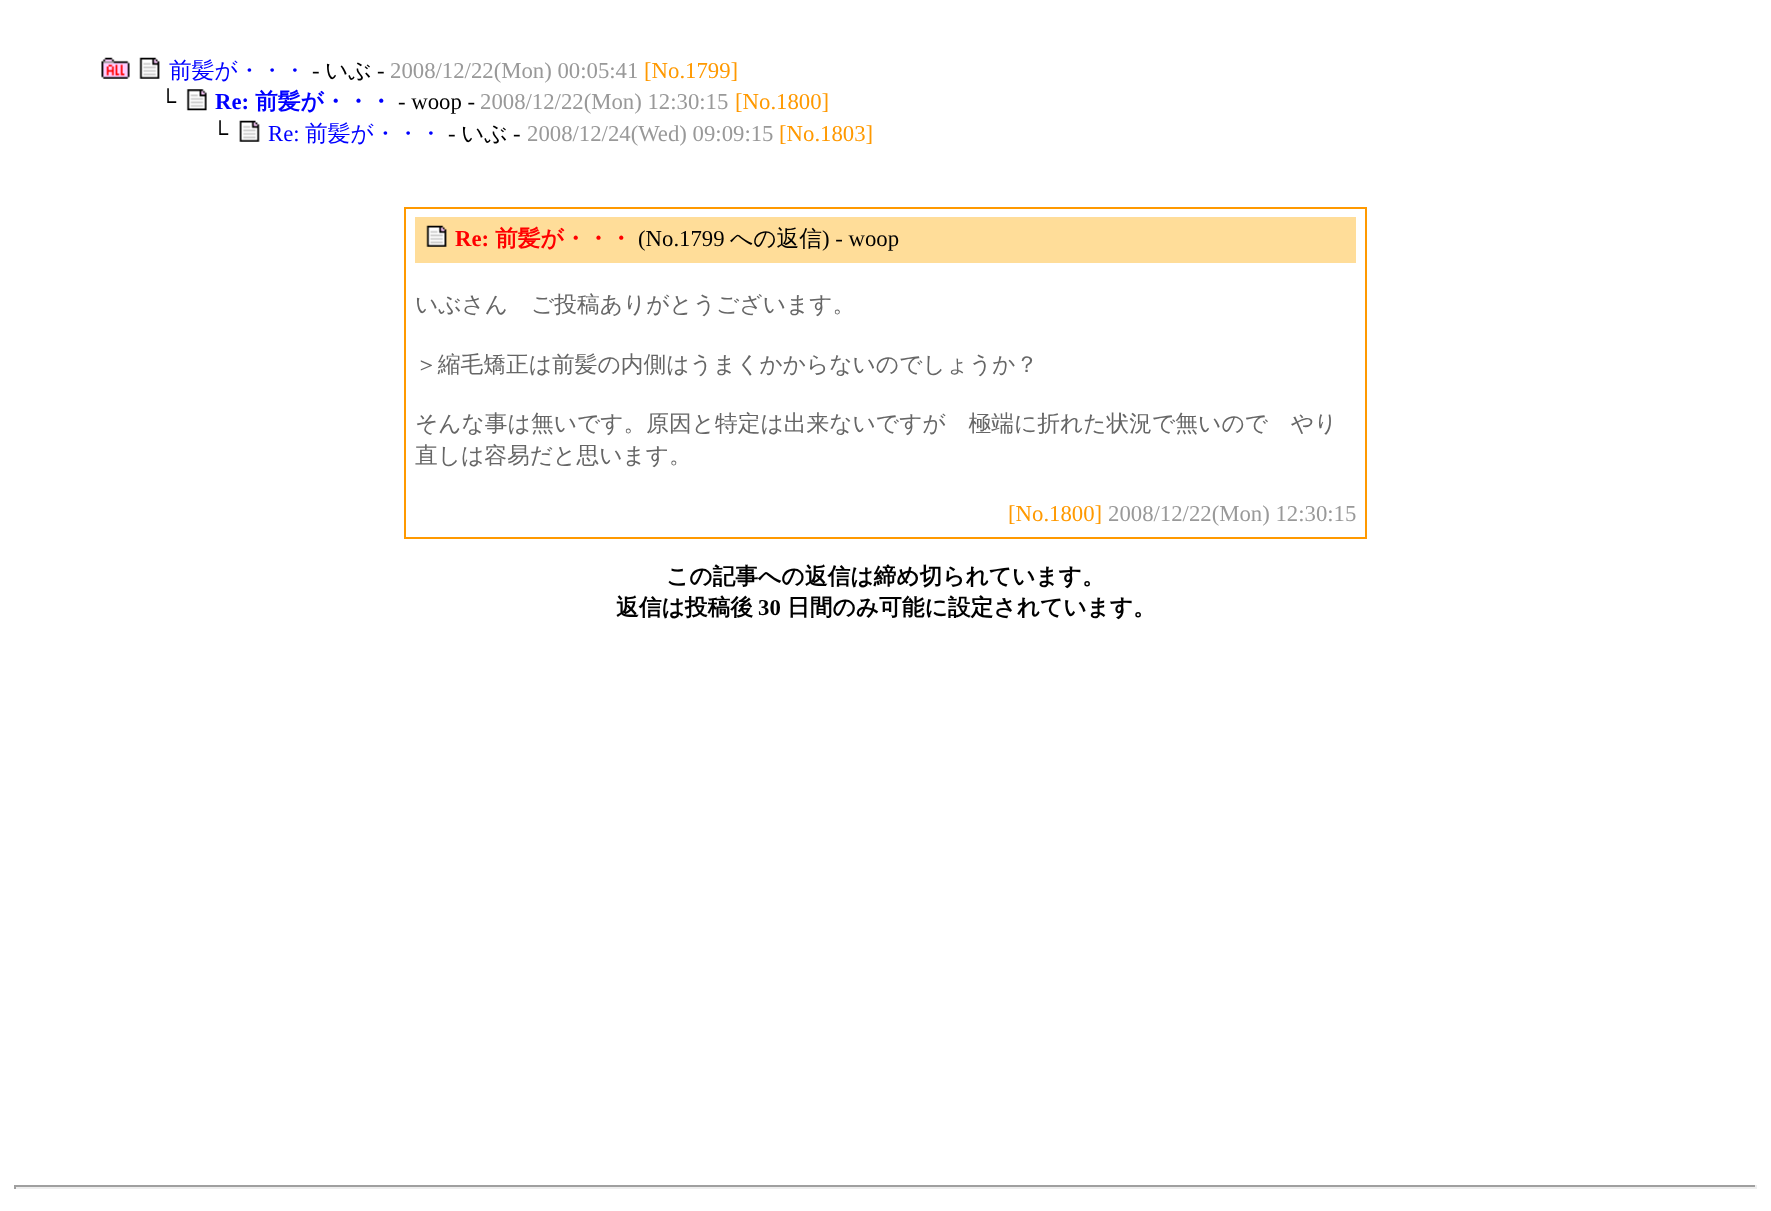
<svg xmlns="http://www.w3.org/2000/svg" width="1771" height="1211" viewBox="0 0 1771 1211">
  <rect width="100%" height="100%" fill="#ffffff"/>
  <image x="101" y="57" width="29" height="22" href="img1.png"/>
  <image x="139" y="57" width="21" height="22" href="img2.png"/>
  <text x="169" y="78" font-family="WenQuanYi Zen Hei" font-size="22.75" font-weight="500" fill="#0000ff">前髪が・・・</text>
  <text x="312" y="78" font-family="Liberation Serif" font-size="22.75" fill="#000000">-</text>
  <text x="325" y="78" font-family="WenQuanYi Zen Hei" font-size="22.75" font-weight="500" fill="#000000">いぶ</text>
  <text x="377" y="78" font-family="Liberation Serif" font-size="22.75" fill="#000000">-</text>
  <text x="390" y="78" font-family="Liberation Serif" font-size="22.75" fill="#999999">2008/12/22(Mon) 00:05:41</text>
  <text x="644" y="78" font-family="Liberation Serif" font-size="22.75" fill="#ff9900">[No.1799]</text>
  <text x="160" y="109" font-family="Liberation Serif" font-size="22.75" fill="#000000">└</text>
  <image x="186" y="89" width="21" height="22" href="img3.png"/>
  <text x="215" y="109" font-family="Liberation Serif" font-size="22.75" font-weight="bold" fill="#0000ff">Re:</text>
  <text x="255" y="109" font-family="WenQuanYi Zen Hei" font-size="22.75" font-weight="bold" fill="#0000ff">前髪が・・・</text>
  <text x="398" y="109" font-family="Liberation Serif" font-size="22.75" fill="#000000">- woop -</text>
  <text x="480" y="109" font-family="Liberation Serif" font-size="22.75" fill="#999999">2008/12/22(Mon) 12:30:15</text>
  <text x="735" y="109" font-family="Liberation Serif" font-size="22.75" fill="#ff9900">[No.1800]</text>
  <text x="212" y="141" font-family="Liberation Serif" font-size="22.75" fill="#000000">└</text>
  <image x="239" y="120" width="21" height="22" href="img4.png"/>
  <text x="268" y="141" font-family="Liberation Serif" font-size="22.75" fill="#0000ff">Re:</text>
  <text x="305" y="141" font-family="WenQuanYi Zen Hei" font-size="22.75" font-weight="500" fill="#0000ff">前髪が・・・</text>
  <text x="448" y="141" font-family="Liberation Serif" font-size="22.75" fill="#000000">-</text>
  <text x="461" y="141" font-family="WenQuanYi Zen Hei" font-size="22.75" font-weight="500" fill="#000000">いぶ</text>
  <text x="513" y="141" font-family="Liberation Serif" font-size="22.75" fill="#000000">-</text>
  <text x="527" y="141" font-family="Liberation Serif" font-size="22.75" fill="#999999">2008/12/24(Wed) 09:09:15</text>
  <text x="779" y="141" font-family="Liberation Serif" font-size="22.75" fill="#ff9900">[No.1803]</text>
  <rect x="405" y="208" width="961" height="330" fill="none" stroke="#ff9900" stroke-width="2"/>
  <rect x="415" y="217" width="941" height="46" fill="#ffdd99"/>
  <image x="426" y="225" width="21" height="22" href="img5.png"/>
  <text x="455" y="246" font-family="Liberation Serif" font-size="22.75" font-weight="bold" fill="#ff0000">Re:</text>
  <text x="495" y="246" font-family="WenQuanYi Zen Hei" font-size="22.75" font-weight="bold" fill="#ff0000">前髪が・・・</text>
  <text x="638" y="246" font-family="Liberation Serif" font-size="22.75" fill="#000000">(No.1799</text>
  <text x="730" y="246" font-family="WenQuanYi Zen Hei" font-size="22.75" font-weight="500" fill="#000000">への返信</text>
  <text x="822" y="246" font-family="Liberation Serif" font-size="22.75" fill="#000000">) - woop</text>
  <text x="415" y="312" font-family="WenQuanYi Zen Hei" font-size="22.75" font-weight="500" fill="#666666">いぶさん　ご投稿ありがとうございます。</text>
  <text x="415" y="372" font-family="WenQuanYi Zen Hei" font-size="22.75" font-weight="500" fill="#666666">＞縮毛矯正は前髪の内側はうまくかからないのでしょうか？</text>
  <text x="415" y="431" font-family="WenQuanYi Zen Hei" font-size="22.75" font-weight="500" fill="#666666">そんな事は無いです。原因と特定は出来ないですが　極端に折れた状況で無いので　やり</text>
  <text x="415" y="463" font-family="WenQuanYi Zen Hei" font-size="22.75" font-weight="500" fill="#666666">直しは容易だと思います。</text>
  <text x="1008" y="521" font-family="Liberation Serif" font-size="22.75" fill="#ff9900">[No.1800]</text>
  <text x="1108" y="521" font-family="Liberation Serif" font-size="22.75" fill="#999999">2008/12/22(Mon) 12:30:15</text>
  <text x="666" y="584" font-family="WenQuanYi Zen Hei" font-size="22.75" font-weight="bold" fill="#000000">この記事への返信は締め切られています。</text>
  <text x="616" y="615" font-family="WenQuanYi Zen Hei" font-size="22.75" font-weight="bold" fill="#000000">返信は投稿後</text>
  <text x="758" y="615" font-family="Liberation Serif" font-size="22.75" font-weight="bold" fill="#000000">30</text>
  <text x="787" y="615" font-family="WenQuanYi Zen Hei" font-size="22.75" font-weight="bold" fill="#000000">日間のみ可能に設定されています。</text>
  <rect x="14" y="1185" width="1743" height="2" fill="#9f9f9f"/>
  <rect x="1755" y="1185" width="2" height="4" fill="#eeeeee"/>
  <rect x="14" y="1187" width="1743" height="2" fill="#eeeeee"/>
  <rect x="14" y="1185" width="2" height="4" fill="#9f9f9f"/>
</svg>
